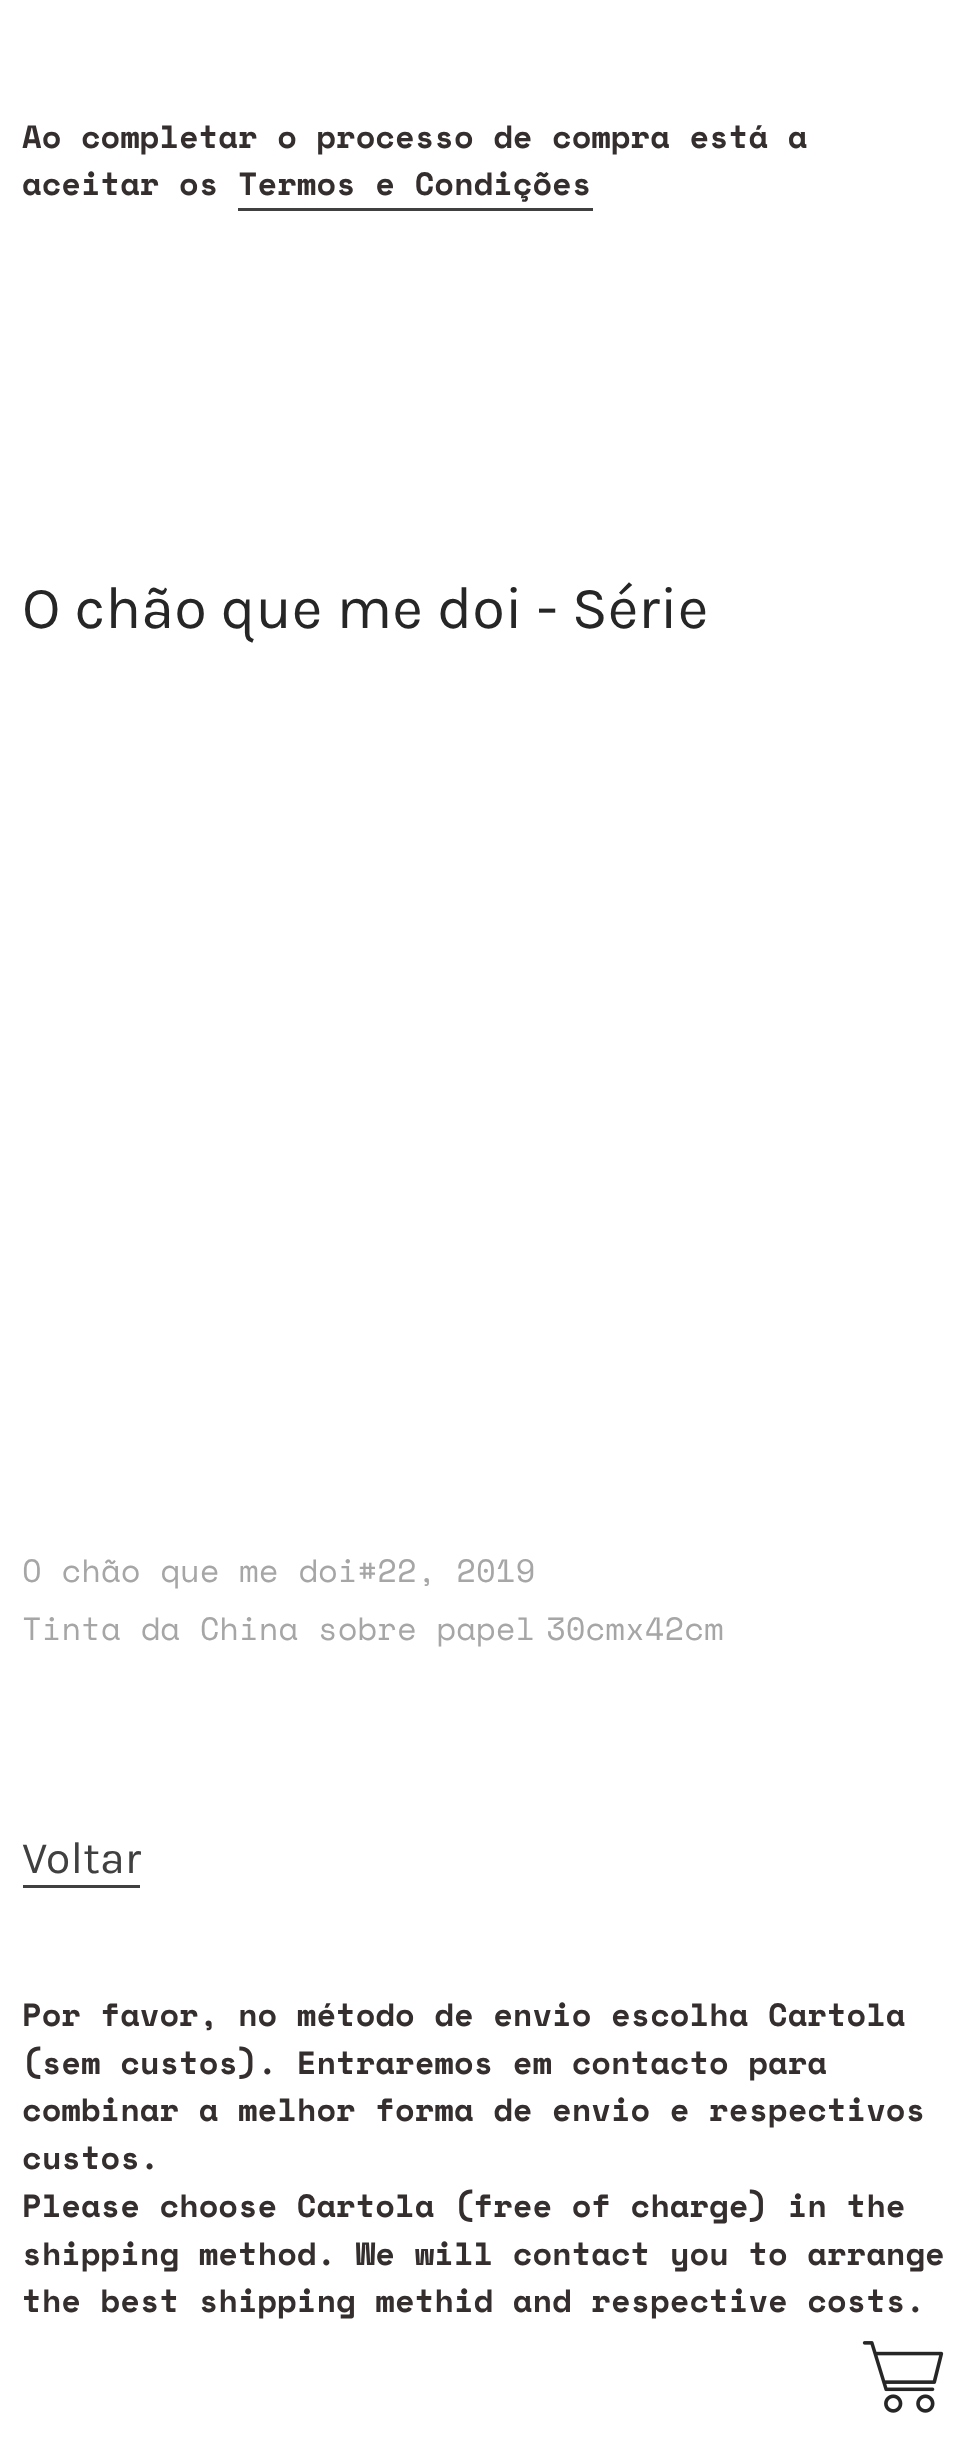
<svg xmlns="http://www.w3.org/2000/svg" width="969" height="2442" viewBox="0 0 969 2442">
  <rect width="100%" height="100%" fill="#ffffff"/>
  <text x="22" y="148" font-family="Space Mono" font-size="32.1" font-weight="bold" fill="#342e2e">Ao completar o processo de compra está a</text>
  <text x="22" y="195" font-family="Space Mono" font-size="32.1" font-weight="bold" fill="#342e2e">aceitar os Termos e Condições</text>
  <rect x="238" y="208" width="355" height="3" fill="#404040"/>
  <text x="22" y="628" font-family="Karla" font-size="59.6" fill="#262626">O chão que me doi - Série</text>
  <text x="22" y="1582" font-family="Space Mono" font-size="32.25" fill="#a6a6a6">O chão que me doi#22, 2019</text>
  <text x="22" y="1640" font-family="Space Mono" font-size="32.25" fill="#a6a6a6">Tinta da China sobre papel</text>
  <text x="546" y="1640" font-family="Space Mono" font-size="32.25" fill="#a6a6a6">30cmx42cm</text>
  <text x="22" y="1873" font-family="Karla" font-size="45" fill="#404040">Voltar</text>
  <rect x="23" y="1885" width="117" height="3" fill="#404040"/>
  <text x="22" y="2026" font-family="Space Mono" font-size="32.1" font-weight="bold" fill="#342e2e">Por favor, no método de envio escolha Cartola</text>
  <text x="22" y="2074" font-family="Space Mono" font-size="32.1" font-weight="bold" fill="#342e2e">(sem custos). Entraremos em contacto para</text>
  <text x="22" y="2121" font-family="Space Mono" font-size="32.1" font-weight="bold" fill="#342e2e">combinar a melhor forma de envio e respectivos</text>
  <text x="22" y="2169" font-family="Space Mono" font-size="32.1" font-weight="bold" fill="#342e2e">custos.</text>
  <text x="22" y="2217" font-family="Space Mono" font-size="32.1" font-weight="bold" fill="#342e2e">Please choose Cartola (free of charge) in the</text>
  <text x="22" y="2265" font-family="Space Mono" font-size="32.1" font-weight="bold" fill="#342e2e">shipping method. We will contact you to arrange</text>
  <text x="22" y="2312" font-family="Space Mono" font-size="32.1" font-weight="bold" fill="#342e2e">the best shipping methid and respective costs.</text>
  <image x="862" y="2341" width="82" height="72" href="img1.png"/>
</svg>
